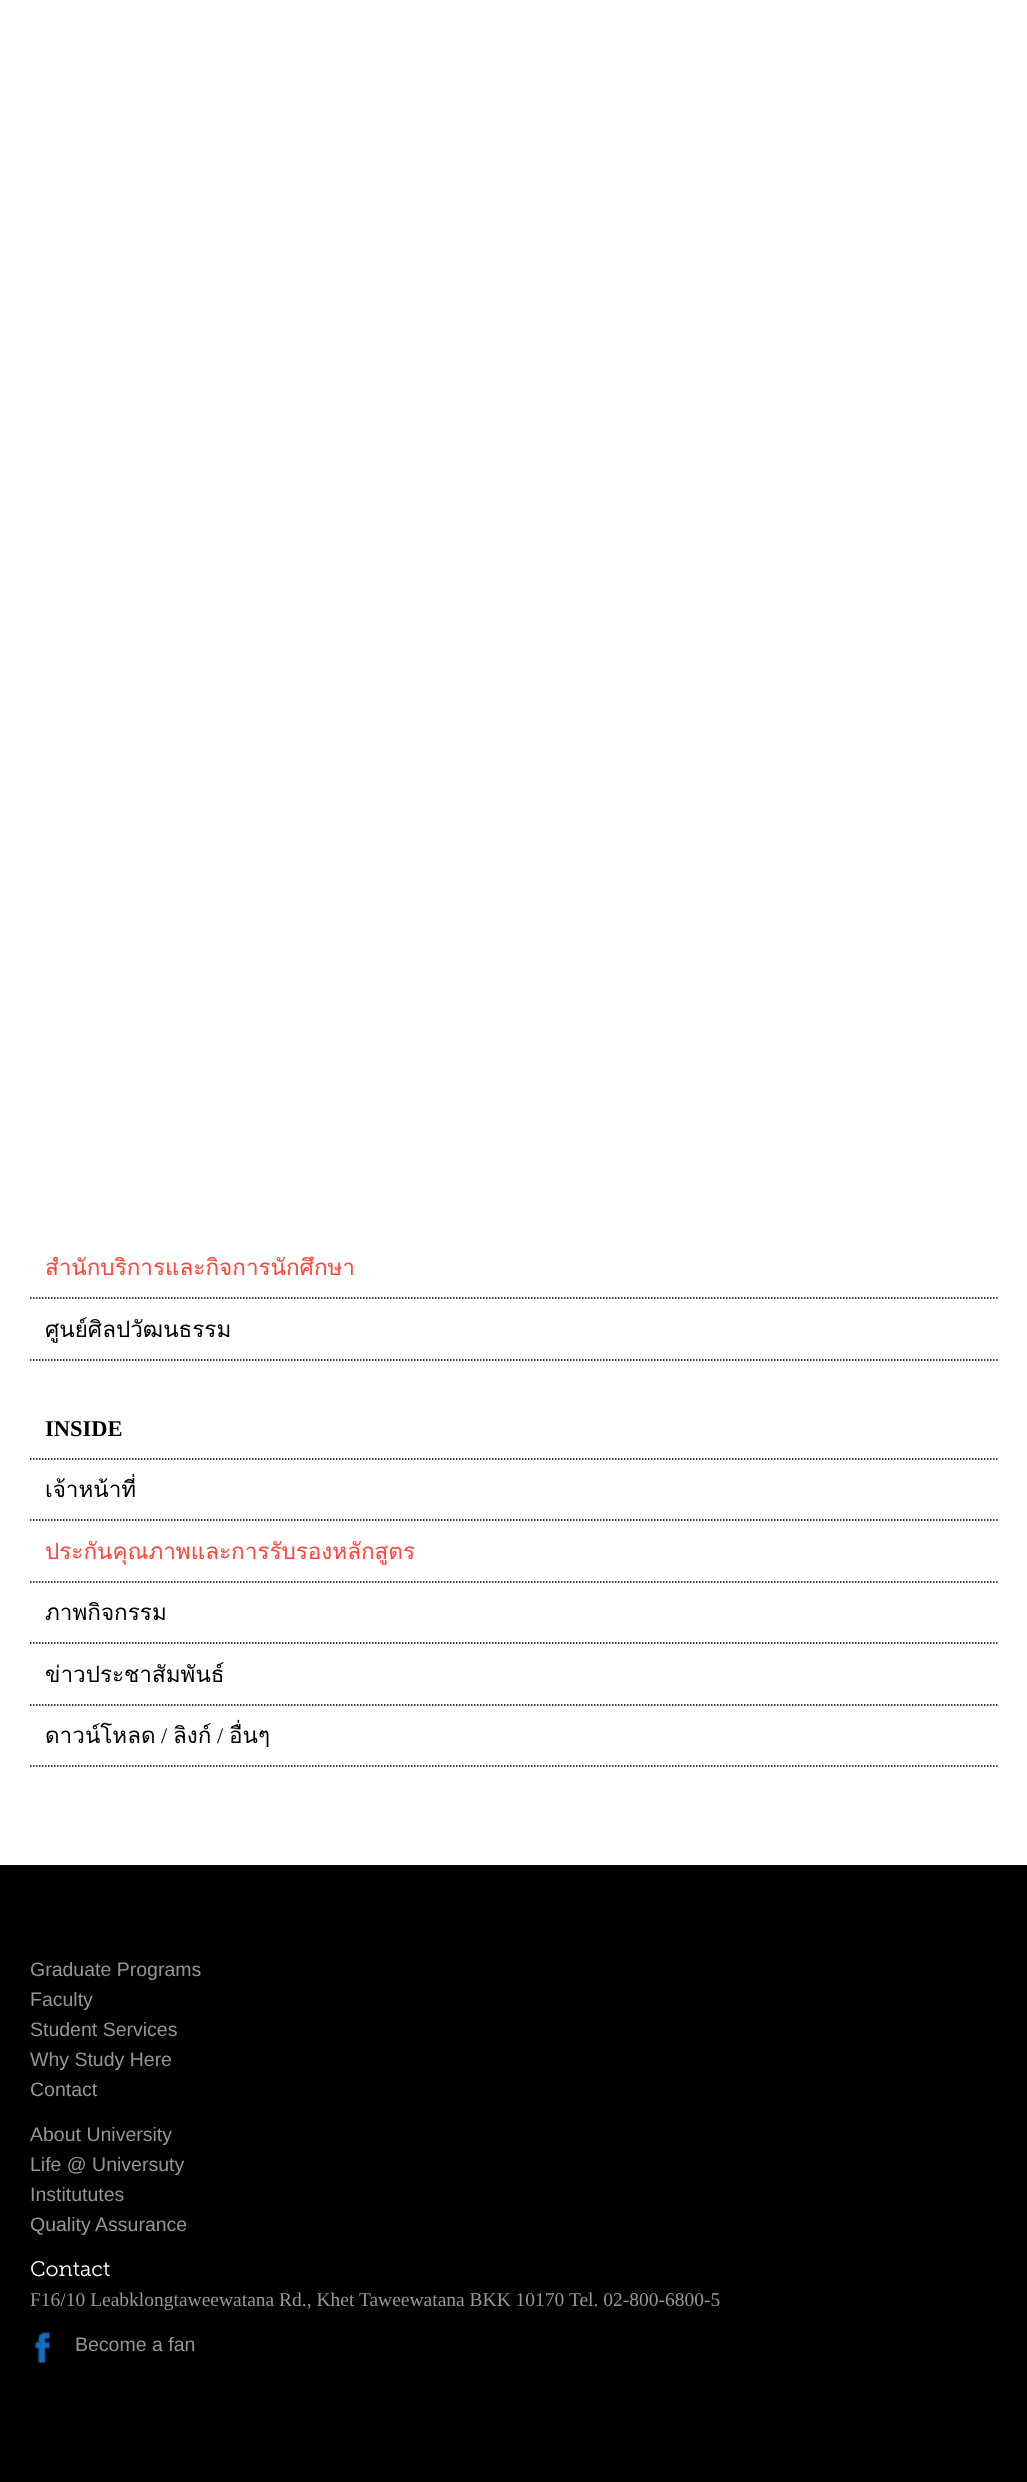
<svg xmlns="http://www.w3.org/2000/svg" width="1027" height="2482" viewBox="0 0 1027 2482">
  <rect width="100%" height="100%" fill="#ffffff"/>
  <path d="M30 1298H997.5" fill="none" stroke="#000000" stroke-width="1.5" stroke-dasharray="1.5 1.5"/>
  <text x="45" y="1275" font-family="Loma" font-size="22.5" fill="#ff4537">สำนักบริการและกิจการนักศึกษา</text>
  <path d="M30 1360H997.5" fill="none" stroke="#000000" stroke-width="1.5" stroke-dasharray="1.5 1.5"/>
  <text x="45" y="1337" font-family="Loma" font-size="22.5" fill="#000000">ศูนย์ศิลปวัฒนธรรม</text>
  <path d="M30 1459H997.5" fill="none" stroke="#000000" stroke-width="1.5" stroke-dasharray="1.5 1.5"/>
  <text x="45" y="1436" font-family="Liberation Serif" font-size="22.5" font-weight="bold" fill="#000000">INSIDE</text>
  <path d="M30 1520H997.5" fill="none" stroke="#000000" stroke-width="1.5" stroke-dasharray="1.5 1.5"/>
  <text x="45" y="1497" font-family="Loma" font-size="22.5" fill="#000000">เจ้าหน้าที่</text>
  <path d="M30 1582H997.5" fill="none" stroke="#000000" stroke-width="1.5" stroke-dasharray="1.5 1.5"/>
  <text x="45" y="1559" font-family="Loma" font-size="22.5" fill="#ff4537">ประกันคุณภาพและการรับรองหลักสูตร</text>
  <path d="M30 1643H997.5" fill="none" stroke="#000000" stroke-width="1.5" stroke-dasharray="1.5 1.5"/>
  <text x="45" y="1620" font-family="Loma" font-size="22.5" fill="#000000">ภาพกิจกรรม</text>
  <path d="M30 1705H997.5" fill="none" stroke="#000000" stroke-width="1.5" stroke-dasharray="1.5 1.5"/>
  <text x="45" y="1682" font-family="Loma" font-size="22.5" fill="#000000">ข่าวประชาสัมพันธ์</text>
  <path d="M30 1766H997.5" fill="none" stroke="#000000" stroke-width="1.5" stroke-dasharray="1.5 1.5"/>
  <text x="45" y="1743" font-family="Loma" font-size="22.5" fill="#000000">ดาวน์โหลด</text>
  <text x="161" y="1743" font-family="Liberation Serif" font-size="22.5" fill="#000000">/</text>
  <text x="173" y="1743" font-family="Loma" font-size="22.5" fill="#000000">ลิงก์</text>
  <text x="217" y="1743" font-family="Liberation Serif" font-size="22.5" fill="#000000">/</text>
  <text x="229" y="1743" font-family="Loma" font-size="22.5" fill="#000000">อื่นๆ</text>
  <rect x="0" y="1865" width="1027" height="617" fill="#000000"/>
  <text x="30" y="1976" font-family="Liberation Sans" font-size="19.5" fill="#959595">Graduate Programs</text>
  <text x="30" y="2006" font-family="Liberation Sans" font-size="19.5" fill="#959595">Faculty</text>
  <text x="30" y="2036" font-family="Liberation Sans" font-size="19.5" fill="#959595">Student Services</text>
  <text x="30" y="2066" font-family="Liberation Sans" font-size="19.5" fill="#959595">Why Study Here</text>
  <text x="30" y="2096" font-family="Liberation Sans" font-size="19.5" fill="#959595">Contact</text>
  <text x="30" y="2141" font-family="Liberation Sans" font-size="19.5" fill="#959595">About University</text>
  <text x="30" y="2171" font-family="Liberation Sans" font-size="19.5" fill="#959595">Life @ Universuty</text>
  <text x="30" y="2201" font-family="Liberation Sans" font-size="19.5" fill="#959595">Institututes</text>
  <text x="30" y="2231" font-family="Liberation Sans" font-size="19.5" fill="#959595">Quality Assurance</text>
  <text x="30" y="2276" font-family="Museo Slab" font-size="21" fill="#ffffff">Contact</text>
  <text x="30" y="2306" font-family="Liberation Serif" font-size="19.5" fill="#959595">F16/10 Leabklongtaweewatana Rd., Khet Taweewatana BKK 10170 Tel. 02-800-6800-5</text>
  <image x="30" y="2329" width="24" height="36" href="img1.png"/>
  <text x="75" y="2351" font-family="Liberation Sans" font-size="19.5" fill="#959595">Become a fan</text>
</svg>
